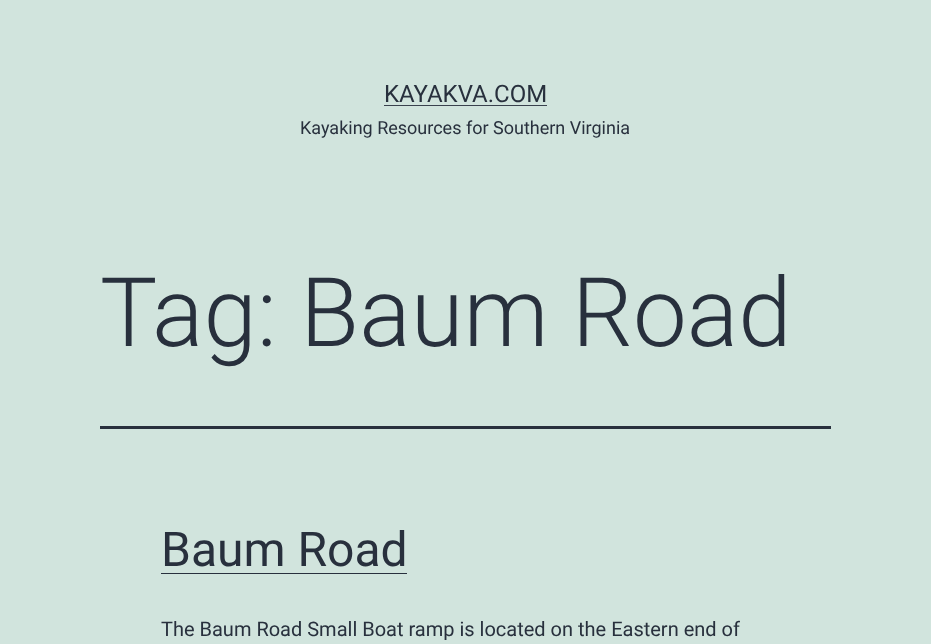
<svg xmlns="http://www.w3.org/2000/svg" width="931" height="644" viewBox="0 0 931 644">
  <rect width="100%" height="100%" fill="#d1e4dd"/>
  <text x="384" y="102" font-family="Roboto" font-size="24" fill="#28303d">KAYAKVA.COM</text>
  <rect x="384" y="105" width="163" height="1" fill="#39414d"/>
  <text x="300" y="134" font-family="Roboto" font-size="18" fill="#28303d">Kayaking Resources for Southern Virginia</text>
  <rect x="100" y="426" width="731" height="3" fill="#28303d"/>
  <text x="100" y="346" font-family="Roboto" font-size="96" font-weight="300" fill="#28303d">Tag: Baum Road</text>
  <text x="161" y="566" font-family="Roboto" font-size="48" fill="#28303d">Baum Road</text>
  <rect x="161" y="573" width="246" height="1" fill="#28303d"/>
  <text x="161" y="636" font-family="Roboto" font-size="20" fill="#28303d">The Baum Road Small Boat ramp is located on the Eastern end of</text>
</svg>
